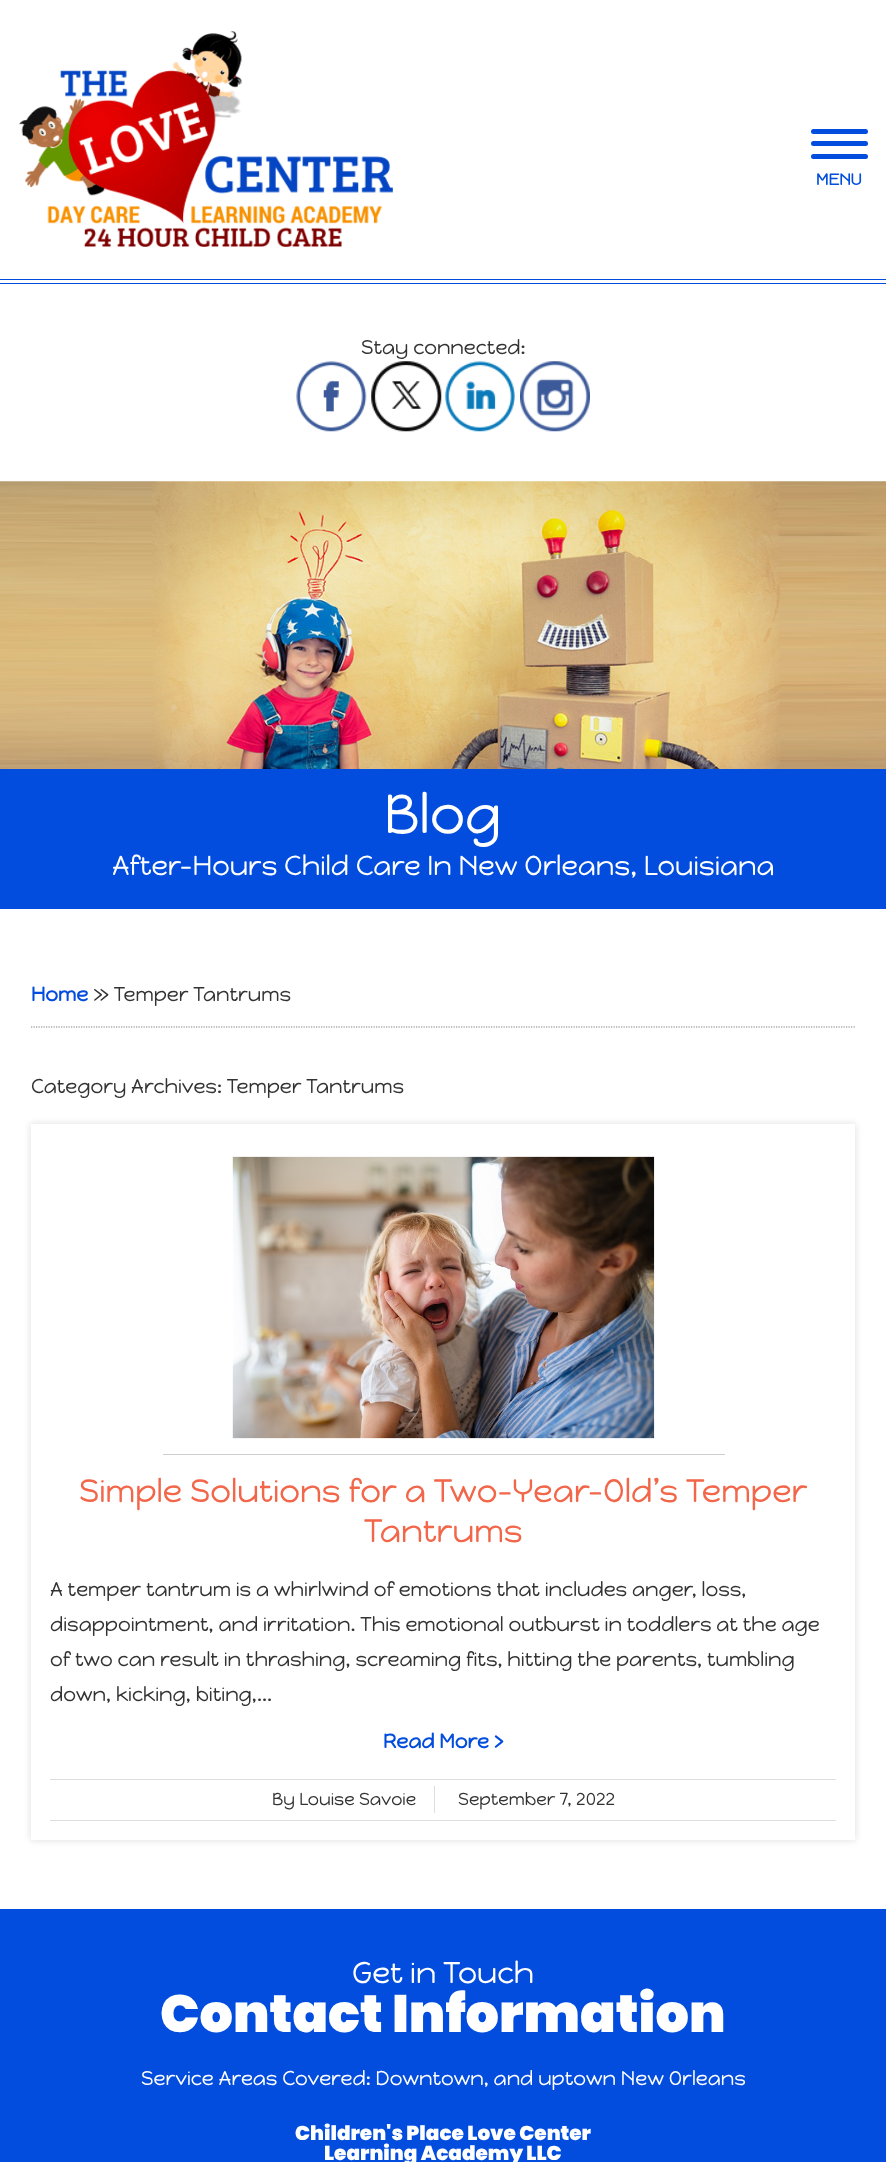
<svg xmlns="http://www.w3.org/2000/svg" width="886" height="2162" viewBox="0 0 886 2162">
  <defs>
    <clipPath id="clip1"><path d="M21 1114H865V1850H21ZM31 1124H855V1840H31Z" clip-rule="evenodd"/></clipPath>
    <filter id="blur1" x="-50%" y="-200%" width="200%" height="500%"><feGaussianBlur stdDeviation="3"/></filter>
  </defs>
  <rect width="100%" height="100%" fill="#ffffff"/>
  <rect x="0" y="279" width="886" height="1" fill="#024dde"/>
  <rect x="0" y="283" width="886" height="1" fill="#024dde"/>
  <image x="18" y="31" width="375" height="216" href="img1.png"/>
  <rect x="811" y="141" width="57" height="5" rx="2.5" fill="#024dde"/>
  <rect x="811" y="129" width="57" height="5" rx="2.5" fill="#024dde"/>
  <rect x="811" y="154" width="57" height="5" rx="2.5" fill="#024dde"/>
  <text x="816" y="185" font-family="Happy Monkey" font-size="16" font-weight="bold" fill="#024dde">MENU</text>
  <text x="361" y="354" font-family="Happy Monkey" font-size="20" fill="#333333">Stay connected:</text>
  <image x="296" y="361" width="71" height="71" href="img2.png"/>
  <image x="371" y="361" width="71" height="71" href="img3.png"/>
  <image x="445" y="361" width="70" height="71" href="img4.png"/>
  <image x="520" y="361" width="70" height="71" href="img5.png"/>
  <image x="0" y="481" width="886" height="288" href="img6.png"/>
  <rect x="0" y="769" width="886" height="140" fill="#024dde"/>
  <text x="384" y="833" font-family="Happy Monkey" font-size="55" fill="#ffffff">Blog</text>
  <text x="112" y="875" font-family="Happy Monkey" font-size="27.5" fill="#ffffff">After-Hours Child Care In New Orleans, Louisiana</text>
  <path d="M31 1027H855" fill="none" stroke="#808080" stroke-width="1.2" stroke-dasharray="1.25 1.25"/>
  <text x="31" y="1001" font-family="Happy Monkey" font-size="20" font-weight="bold" fill="#024dde">Home</text>
  <text x="93" y="1001" font-family="Happy Monkey" font-size="20" fill="#333333">» Temper Tantrums</text>
  <text x="31" y="1093" font-family="Happy Monkey" font-size="20" fill="#333333">Category Archives: Temper Tantrums</text>
  <g clip-path="url(#clip1)">
    <rect x="31" y="1124" width="824" height="716" fill="#373737" fill-opacity="0.18" filter="url(#blur1)"/>
  </g>
  <rect x="163" y="1454" width="562" height="1" fill="#cecece"/>
  <image x="232" y="1156" width="423" height="283" href="img7.png"/>
  <text x="79" y="1502" font-family="Happy Monkey" font-size="32.5" fill="#f2664a">Simple Solutions for a Two-Year-Old’s Temper</text>
  <text x="364" y="1542" font-family="Happy Monkey" font-size="32.5" fill="#f2664a">Tantrums</text>
  <text x="50" y="1596" font-family="Happy Monkey" font-size="20" fill="#333333">A temper tantrum is a whirlwind of emotions that includes anger, loss,</text>
  <text x="50" y="1631" font-family="Happy Monkey" font-size="20" fill="#333333">disappointment, and irritation. This emotional outburst in toddlers at the age</text>
  <text x="50" y="1666" font-family="Happy Monkey" font-size="20" fill="#333333">of two can result in thrashing, screaming fits, hitting the parents, tumbling</text>
  <text x="50" y="1701" font-family="Happy Monkey" font-size="20" fill="#333333">down, kicking, biting,...</text>
  <text x="383" y="1748" font-family="Happy Monkey" font-size="20" font-weight="bold" fill="#024dde">Read More ›</text>
  <rect x="50" y="1779" width="786" height="1" fill="#dedede"/>
  <rect x="50" y="1820" width="786" height="1" fill="#dedede"/>
  <text x="272" y="1805" font-family="Happy Monkey" font-size="17.5" fill="#333333">By Louise Savoie</text>
  <rect x="434" y="1786" width="1" height="27" fill="#dedede"/>
  <text x="458" y="1805" font-family="Happy Monkey" font-size="17.5" fill="#333333">September 7, 2022</text>
  <rect x="0" y="1909" width="886" height="253" fill="#024dde"/>
  <text x="352" y="1983" font-family="Happy Monkey" font-size="30" fill="#ffffff">Get in Touch</text>
  <text x="160" y="2032" font-family="Poppins" font-size="52.5" font-weight="900" fill="#ffffff">Contact Information</text>
  <text x="141" y="2085" font-family="Happy Monkey" font-size="20" fill="#ffffff">Service Areas Covered: Downtown, and uptown New Orleans</text>
  <text x="295" y="2140" font-family="Poppins" font-size="20" font-weight="900" fill="#ffffff">Children's Place Love Center</text>
  <text x="324" y="2160" font-family="Poppins" font-size="20" font-weight="900" fill="#ffffff">Learning Academy LLC</text>
</svg>
